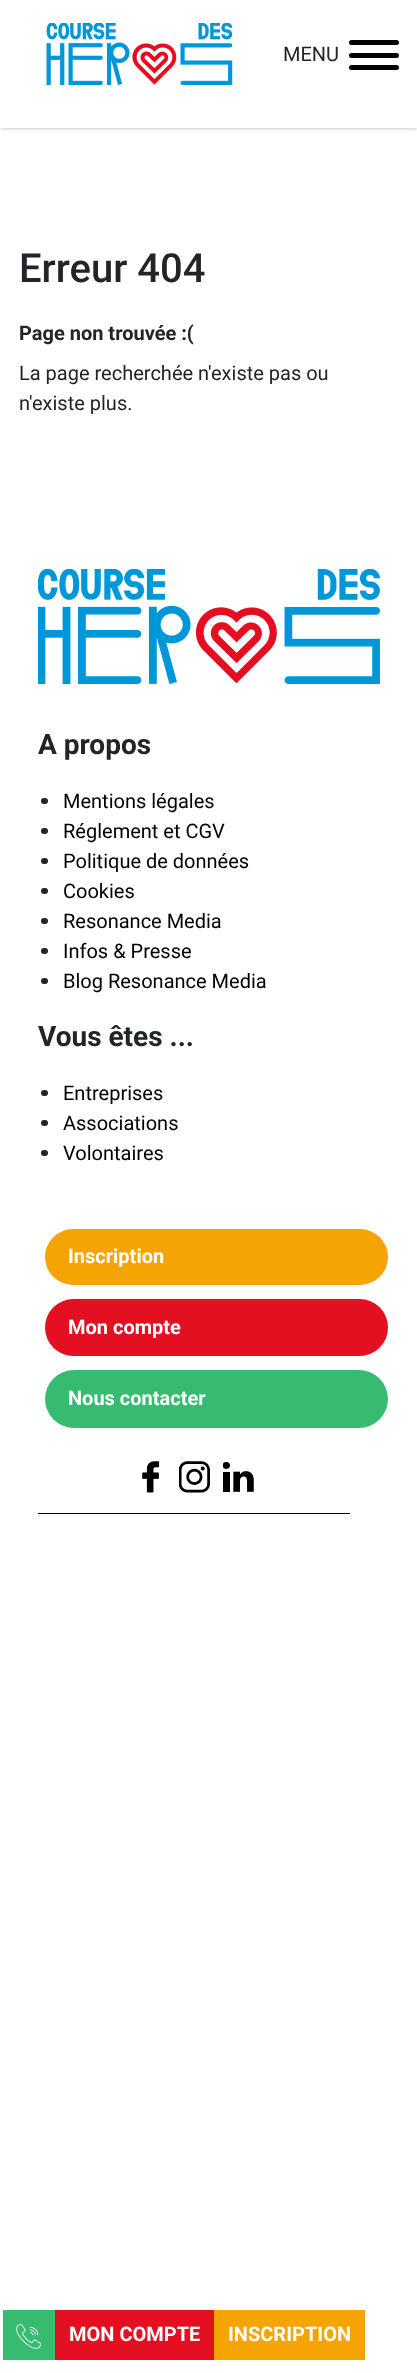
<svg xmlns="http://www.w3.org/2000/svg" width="417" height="2373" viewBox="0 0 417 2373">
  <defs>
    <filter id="blur1" x="-50%" y="-200%" width="200%" height="500%"><feGaussianBlur stdDeviation="2"/></filter>
  </defs>
  <rect width="100%" height="100%" fill="#ffffff"/>
  <rect x="0" y="0" width="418" height="128" fill="#000000" fill-opacity="0.3" filter="url(#blur1)"/>
  <rect x="0" y="0" width="417" height="128" fill="#ffffff"/>
  <image x="46" y="23" width="187" height="62" href="img1.png"/>
  <text x="283" y="61" font-family="Roboto" font-size="20" fill="#212529">MENU</text>
  <rect x="349" y="65" width="50" height="5" rx="2.5" fill="#000000"/>
  <rect x="349" y="40" width="50" height="5" rx="2.5" fill="#000000"/>
  <rect x="349" y="53" width="50" height="5" rx="2.5" fill="#000000"/>
  <rect x="3" y="2310" width="52" height="50" fill="#37bb70"/>
  <image x="16" y="2324" width="25" height="25" href="img2.png"/>
  <rect x="55" y="2310" width="159" height="50" fill="#e40f21"/>
  <text x="69" y="2341" font-family="Roboto" font-size="20" font-weight="bold" fill="#ffffff">MON COMPTE</text>
  <rect x="214" y="2310" width="151" height="50" fill="#f6a403"/>
  <text x="228" y="2341" font-family="Roboto" font-size="20" font-weight="bold" fill="#ffffff">INSCRIPTION</text>
  <text x="19" y="282" font-family="Roboto" font-size="40" font-weight="500" fill="#212529">Erreur 404</text>
  <text x="19" y="340" font-family="Roboto" font-size="20" font-weight="bold" fill="#212529">Page non trouvée :(</text>
  <text x="19" y="380" font-family="Roboto" font-size="20" fill="#212529">La page recherchée n'existe pas ou</text>
  <text x="19" y="410" font-family="Roboto" font-size="20" fill="#212529">n'existe plus.</text>
  <image x="38" y="569" width="342" height="115" href="img3.png"/>
  <text x="38" y="754" font-family="Roboto" font-size="28" font-weight="bold" fill="#212529">A propos</text>
  <rect x="41" y="798" width="7" height="6" rx="3" fill="#212529"/>
  <text x="63" y="808" font-family="Roboto" font-size="20" fill="#000000">Mentions légales</text>
  <rect x="41" y="828" width="7" height="6" rx="3" fill="#212529"/>
  <text x="63" y="838" font-family="Roboto" font-size="20" fill="#000000">Réglement et CGV</text>
  <rect x="41" y="858" width="7" height="6" rx="3" fill="#212529"/>
  <text x="63" y="868" font-family="Roboto" font-size="20" fill="#000000">Politique de données</text>
  <rect x="41" y="888" width="7" height="6" rx="3" fill="#212529"/>
  <text x="63" y="898" font-family="Roboto" font-size="20" fill="#000000">Cookies</text>
  <rect x="41" y="918" width="7" height="6" rx="3" fill="#212529"/>
  <text x="63" y="928" font-family="Roboto" font-size="20" fill="#000000">Resonance Media</text>
  <rect x="41" y="948" width="7" height="6" rx="3" fill="#212529"/>
  <text x="63" y="958" font-family="Roboto" font-size="20" fill="#000000">Infos &amp; Presse</text>
  <rect x="41" y="978" width="7" height="6" rx="3" fill="#212529"/>
  <text x="63" y="988" font-family="Roboto" font-size="20" fill="#000000">Blog Resonance Media</text>
  <text x="38" y="1046" font-family="Roboto" font-size="28" font-weight="bold" fill="#212529">Vous êtes ...</text>
  <rect x="41" y="1090" width="7" height="6" rx="3" fill="#212529"/>
  <text x="63" y="1100" font-family="Roboto" font-size="20" fill="#000000">Entreprises</text>
  <rect x="41" y="1120" width="7" height="6" rx="3" fill="#212529"/>
  <text x="63" y="1130" font-family="Roboto" font-size="20" fill="#000000">Associations</text>
  <rect x="41" y="1150" width="7" height="6" rx="3" fill="#212529"/>
  <text x="63" y="1160" font-family="Roboto" font-size="20" fill="#000000">Volontaires</text>
  <rect x="45" y="1229" width="343" height="56" rx="28" fill="#f6a403"/>
  <text x="68" y="1263" font-family="Roboto" font-size="20" font-weight="bold" fill="#ffffff">Inscription</text>
  <rect x="45" y="1299" width="343" height="57" rx="28.5" fill="#e40f21"/>
  <text x="68" y="1334" font-family="Roboto" font-size="20" font-weight="bold" fill="#ffffff">Mon compte</text>
  <rect x="45" y="1370" width="343" height="58" rx="29" fill="#37bb70"/>
  <text x="68" y="1405" font-family="Roboto" font-size="20" font-weight="bold" fill="#ffffff">Nous contacter</text>
  <rect x="38" y="1513" width="312" height="1" fill="#000000"/>
  <image x="142" y="1461" width="18" height="32" href="img4.png"/>
  <image x="179" y="1461" width="31" height="32" href="img5.png"/>
  <image x="223" y="1462" width="31" height="30" href="img6.png"/>
</svg>
